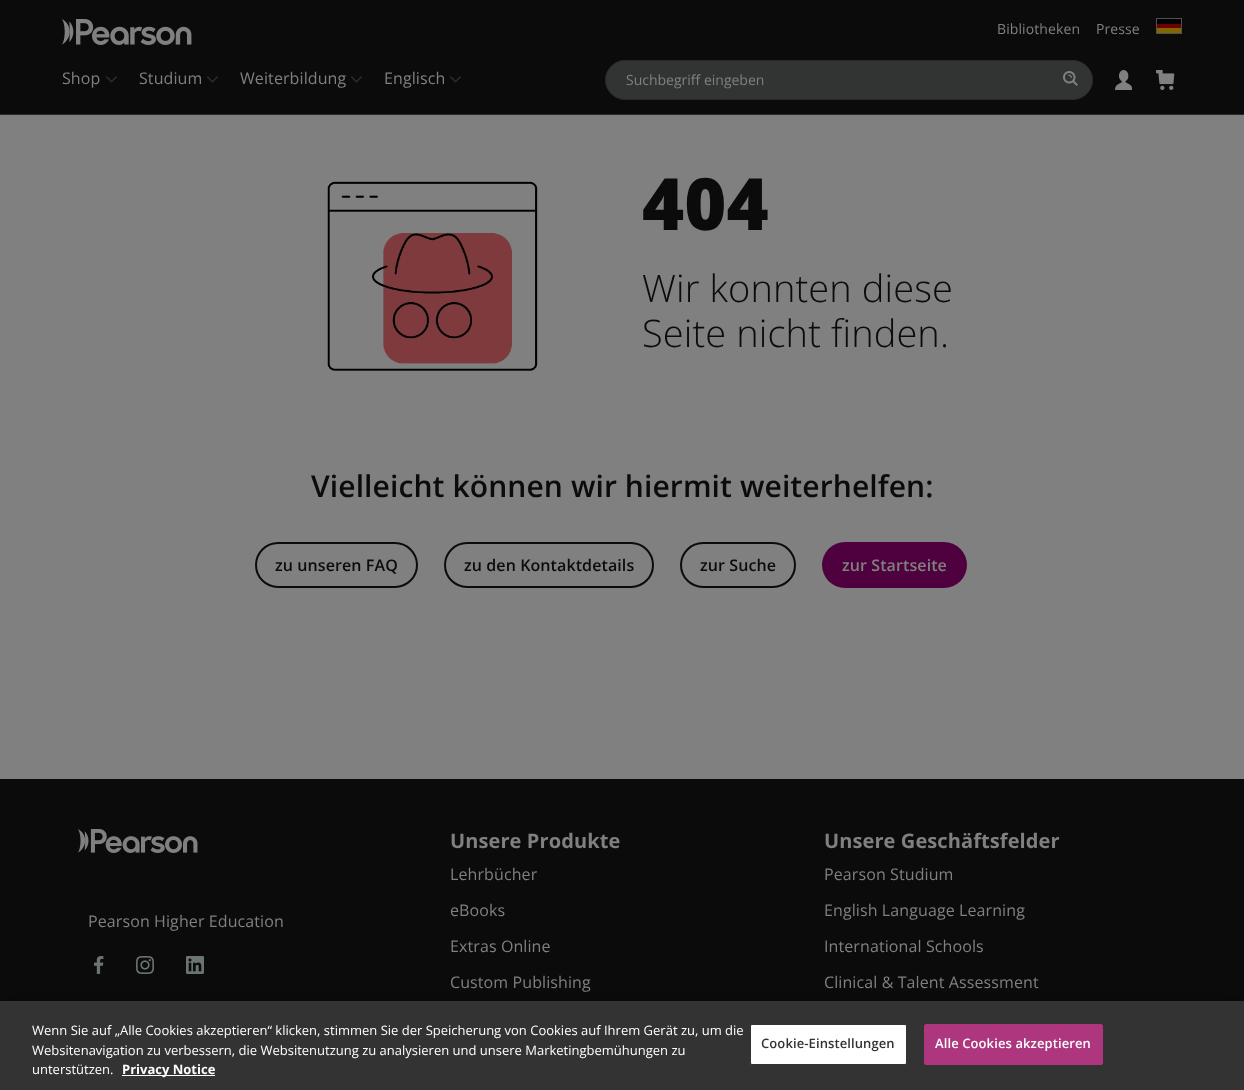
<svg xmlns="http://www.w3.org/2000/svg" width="1244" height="1090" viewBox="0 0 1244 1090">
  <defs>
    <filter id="blur1" x="-50%" y="-200%" width="200%" height="500%"><feGaussianBlur stdDeviation="9"/></filter>
  </defs>
  <rect width="100%" height="100%" fill="#808080"/>
  <rect x="0" y="0" width="1244" height="114" fill="#0b0b0b"/>
  <rect x="0" y="114" width="1244" height="1" fill="#282c2d"/>
  <image x="62" y="19" width="130" height="26" href="img1.png"/>
  <text x="997" y="34" font-family="Open Sans" font-size="14" letter-spacing="0.1" fill="#808080">Bibliotheken</text>
  <text x="1096" y="34" font-family="Open Sans" font-size="14" letter-spacing="0.1" fill="#808080">Presse</text>
  <rect x="1156.5" y="18.5" width="25" height="15" fill="none" stroke="#505050"/>
  <rect x="1157" y="19" width="24" height="5" fill="#000000"/>
  <rect x="1157" y="24" width="24" height="4" fill="#6f0000"/>
  <rect x="1157" y="28" width="24" height="5" fill="#806700"/>
  <text x="62" y="84" font-family="Open Sans" font-size="16" letter-spacing="0.1" fill="#808080">Shop</text>
  <image x="106" y="76" width="11" height="7" href="img2.png"/>
  <text x="139" y="84" font-family="Open Sans" font-size="16" letter-spacing="0.1" fill="#808080">Studium</text>
  <image x="207" y="76" width="11" height="7" href="img2.png"/>
  <text x="240" y="84" font-family="Open Sans" font-size="16" letter-spacing="0.1" fill="#808080">Weiterbildung</text>
  <image x="351" y="76" width="11" height="7" href="img2.png"/>
  <text x="384" y="84" font-family="Open Sans" font-size="16" letter-spacing="0.1" fill="#808080">Englisch</text>
  <image x="450" y="76" width="11" height="7" href="img2.png"/>
  <rect x="605.5" y="60.5" width="487" height="39" rx="19.5" fill="#323333" stroke="#282c2d"/>
  <text x="626" y="85" font-family="Open Sans" font-size="14" fill="#808080">Suchbegriff eingeben</text>
  <image x="1063" y="71" width="15" height="15" href="img3.png"/>
  <image x="1115" y="70" width="17" height="20" href="img4.png"/>
  <image x="1156" y="70" width="19" height="20" href="img5.png"/>
  <image x="327" y="181" width="211" height="190" href="img6.png"/>
  <text x="642" y="230" font-family="Open Sans" font-size="72" font-weight="800" fill="#0b0b0b">404</text>
  <text x="642" y="302" font-family="Open Sans" font-size="38" font-weight="300" letter-spacing="0.1" fill="#0b0b0b">Wir konnten diese</text>
  <text x="642" y="347" font-family="Open Sans" font-size="38" font-weight="300" letter-spacing="0.1" fill="#0b0b0b">Seite nicht finden.</text>
  <text x="311" y="497" font-family="Open Sans" font-size="30" font-weight="600" letter-spacing="0.1" fill="#0b0b0b">Vielleicht können wir hiermit weiterhelfen:</text>
  <rect x="256" y="543" width="161" height="44" rx="22" fill="none" stroke="#0b0b0b" stroke-width="2"/>
  <text x="275" y="571" font-family="Open Sans" font-size="16" font-weight="600" letter-spacing="0.1" fill="#0b0b0b">zu unseren FAQ</text>
  <rect x="445" y="543" width="208" height="44" rx="22" fill="none" stroke="#0b0b0b" stroke-width="2"/>
  <text x="464" y="571" font-family="Open Sans" font-size="16" font-weight="600" letter-spacing="0.1" fill="#0b0b0b">zu den Kontaktdetails</text>
  <rect x="681" y="543" width="114" height="44" rx="22" fill="none" stroke="#0b0b0b" stroke-width="2"/>
  <text x="700" y="571" font-family="Open Sans" font-size="16" font-weight="600" letter-spacing="0.1" fill="#0b0b0b">zur Suche</text>
  <rect x="822" y="542" width="145" height="46" rx="23" fill="#4f003f"/>
  <text x="842" y="571" font-family="Open Sans" font-size="16" font-weight="600" letter-spacing="0.1" fill="#808080">zur Startseite</text>
  <rect x="0" y="779" width="1244" height="222" fill="#0b0b0b"/>
  <image x="78" y="829" width="120" height="24" href="img7.png"/>
  <text x="88" y="927" font-family="Open Sans" font-size="16" letter-spacing="0.1" fill="#808080">Pearson Higher Education</text>
  <image x="94" y="956" width="10" height="18" href="img8.png"/>
  <image x="136" y="956" width="18" height="18" href="img9.png"/>
  <image x="186" y="956" width="18" height="18" href="img10.png"/>
  <text x="450" y="848" font-family="Open Sans" font-size="20" font-weight="bold" letter-spacing="0.1" fill="#808080">Unsere Produkte</text>
  <text x="450" y="880" font-family="Open Sans" font-size="16" letter-spacing="0.1" fill="#808080">Lehrbücher</text>
  <text x="450" y="916" font-family="Open Sans" font-size="16" letter-spacing="0.1" fill="#808080">eBooks</text>
  <text x="450" y="952" font-family="Open Sans" font-size="16" letter-spacing="0.1" fill="#808080">Extras Online</text>
  <text x="450" y="988" font-family="Open Sans" font-size="16" letter-spacing="0.1" fill="#808080">Custom Publishing</text>
  <text x="824" y="848" font-family="Open Sans" font-size="20" font-weight="bold" letter-spacing="0.1" fill="#808080">Unsere Geschäftsfelder</text>
  <text x="824" y="880" font-family="Open Sans" font-size="16" letter-spacing="0.1" fill="#808080">Pearson Studium</text>
  <text x="824" y="916" font-family="Open Sans" font-size="16" letter-spacing="0.1" fill="#808080">English Language Learning</text>
  <text x="824" y="952" font-family="Open Sans" font-size="16" letter-spacing="0.1" fill="#808080">International Schools</text>
  <text x="824" y="988" font-family="Open Sans" font-size="16" letter-spacing="0.1" fill="#808080">Clinical &amp; Talent Assessment</text>
  <rect x="0" y="1001" width="1244" height="89" fill="#000000" fill-opacity="0.2" filter="url(#blur1)"/>
  <rect x="0" y="1001" width="1244" height="89" fill="#333333"/>
  <text x="32" y="1035" font-family="Open Sans" font-size="13" fill="#fefefe">Wenn Sie auf „Alle Cookies akzeptieren“ klicken, stimmen Sie der Speicherung von Cookies auf Ihrem Gerät zu, um die</text>
  <text x="32" y="1055" font-family="Open Sans" font-size="13" fill="#fefefe">Websitenavigation zu verbessern, die Websitenutzung zu analysieren und unsere Marketingbemühungen zu</text>
  <text x="32" y="1074" font-family="Open Sans" font-size="13" fill="#fefefe">unterstützen.</text>
  <rect x="122" y="1075" width="93" height="1" fill="#fefefe"/>
  <text x="122" y="1074" font-family="Open Sans" font-size="13" font-weight="bold" fill="#fefefe">Privacy Notice</text>
  <rect x="750.5" y="1024.5" width="156" height="40" rx="1.5" fill="#ffffff" stroke="#333333"/>
  <text x="761" y="1048" font-family="Open Sans" font-size="13" font-weight="600" letter-spacing="0.1" fill="#333333">Cookie-Einstellungen</text>
  <rect x="924.5" y="1024.5" width="178" height="40" rx="1.5" fill="#ae367e" stroke="#ae367e"/>
  <text x="935" y="1048" font-family="Open Sans" font-size="13" font-weight="600" letter-spacing="0.1" fill="#fefefe">Alle Cookies akzeptieren</text>
</svg>
